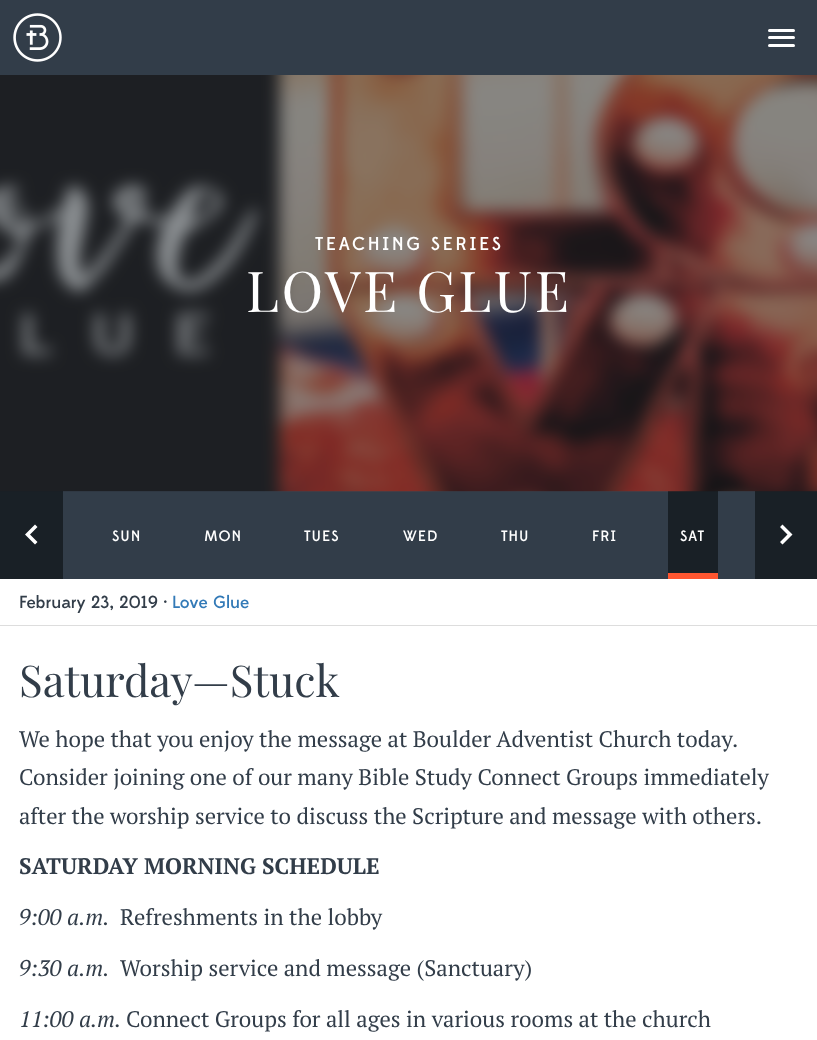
<svg xmlns="http://www.w3.org/2000/svg" width="817" height="1040" viewBox="0 0 817 1040">
  <rect width="100%" height="100%" fill="#323d49"/>
  <image x="13" y="13" width="49" height="49" href="img1.png"/>
  <rect x="768" y="29" width="27" height="3" rx="1.5" fill="#ffffff"/>
  <rect x="768" y="36" width="27" height="3" rx="1.5" fill="#ffffff"/>
  <rect x="768" y="44" width="27" height="3" rx="1.5" fill="#ffffff"/>
  <rect x="0" y="75" width="817" height="416" fill="#192026"/>
  <rect x="0" y="491" width="63" height="88" fill="#192026"/>
  <rect x="668" y="491" width="50" height="82" fill="#192026"/>
  <rect x="755" y="491" width="62" height="88" fill="#192026"/>
  <image x="0" y="75" width="817" height="417" href="img2.png"/>
  <text x="315" y="250" font-family="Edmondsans" font-size="18.75" font-weight="500" letter-spacing="2.5" fill="#ffffff">TEACHING SERIES</text>
  <text x="246" y="312" font-family="Playfair Display" font-size="56.25" letter-spacing="2.5" fill="#ffffff">LOVE GLUE</text>
  <path d="M37.5 527L30 534.5L37.5 542L35 544.5L25 534.5L35 524.5Z" fill="#ffffff"/>
  <text x="112" y="541" font-family="Edmondsans" font-size="15" font-weight="500" letter-spacing="1" fill="#ffffff">SUN</text>
  <text x="204" y="541" font-family="Edmondsans" font-size="15" font-weight="500" letter-spacing="1" fill="#ffffff">MON</text>
  <text x="304" y="541" font-family="Edmondsans" font-size="15" font-weight="500" letter-spacing="1" fill="#ffffff">TUES</text>
  <text x="403" y="541" font-family="Edmondsans" font-size="15" font-weight="500" letter-spacing="1" fill="#ffffff">WED</text>
  <text x="501" y="541" font-family="Edmondsans" font-size="15" font-weight="500" letter-spacing="1" fill="#ffffff">THU</text>
  <text x="592" y="541" font-family="Edmondsans" font-size="15" font-weight="500" letter-spacing="1" fill="#ffffff">FRI</text>
  <rect x="668" y="573" width="50" height="6" fill="#ff5630"/>
  <text x="680" y="541" font-family="Edmondsans" font-size="15" font-weight="500" letter-spacing="1" fill="#ffffff">SAT</text>
  <path d="M782.5 524.5L792.5 534.5L782.5 544.5L780 542L787.5 534.5L780 527Z" fill="#ffffff"/>
  <rect x="0" y="579" width="817" height="46" fill="#ffffff"/>
  <rect x="0" y="625" width="817" height="1" fill="#dddddd"/>
  <text x="19" y="608" font-family="Edmondsans" font-size="17.5" font-weight="500" fill="#323d49">February 23, 2019 ·</text>
  <text x="172" y="608" font-family="Edmondsans" font-size="17.5" font-weight="500" fill="#337ab7">Love Glue</text>
  <rect x="0" y="626" width="817" height="414" fill="#ffffff"/>
  <text x="19" y="697" font-family="Playfair Display" font-size="43.75" fill="#323d49">Saturday—Stuck</text>
  <text x="19" y="747" font-family="PT Serif" font-size="22.5" fill="#323d49">We hope that you enjoy the message at Boulder Adventist Church today.</text>
  <text x="19" y="785" font-family="PT Serif" font-size="22.5" fill="#323d49">Consider joining one of our many Bible Study Connect Groups immediately</text>
  <text x="19" y="824" font-family="PT Serif" font-size="22.5" fill="#323d49">after the worship service to discuss the Scripture and message with others.</text>
  <text x="19" y="874" font-family="PT Serif" font-size="22.5" font-weight="bold" fill="#323d49">SATURDAY MORNING SCHEDULE</text>
  <text x="19" y="925" font-family="PT Serif" font-size="22.5" font-style="italic" fill="#323d49">9:00 a.m.</text>
  <text x="120" y="925" font-family="PT Serif" font-size="22.5" fill="#323d49">Refreshments in the lobby</text>
  <text x="19" y="976" font-family="PT Serif" font-size="22.5" font-style="italic" fill="#323d49">9:30 a.m.</text>
  <text x="120" y="976" font-family="PT Serif" font-size="22.5" fill="#323d49">Worship service and message (Sanctuary)</text>
  <text x="19" y="1027" font-family="PT Serif" font-size="22.5" font-style="italic" fill="#323d49">11:00 a.m.</text>
  <text x="126" y="1027" font-family="PT Serif" font-size="22.5" fill="#323d49">Connect Groups for all ages in various rooms at the church</text>
</svg>
